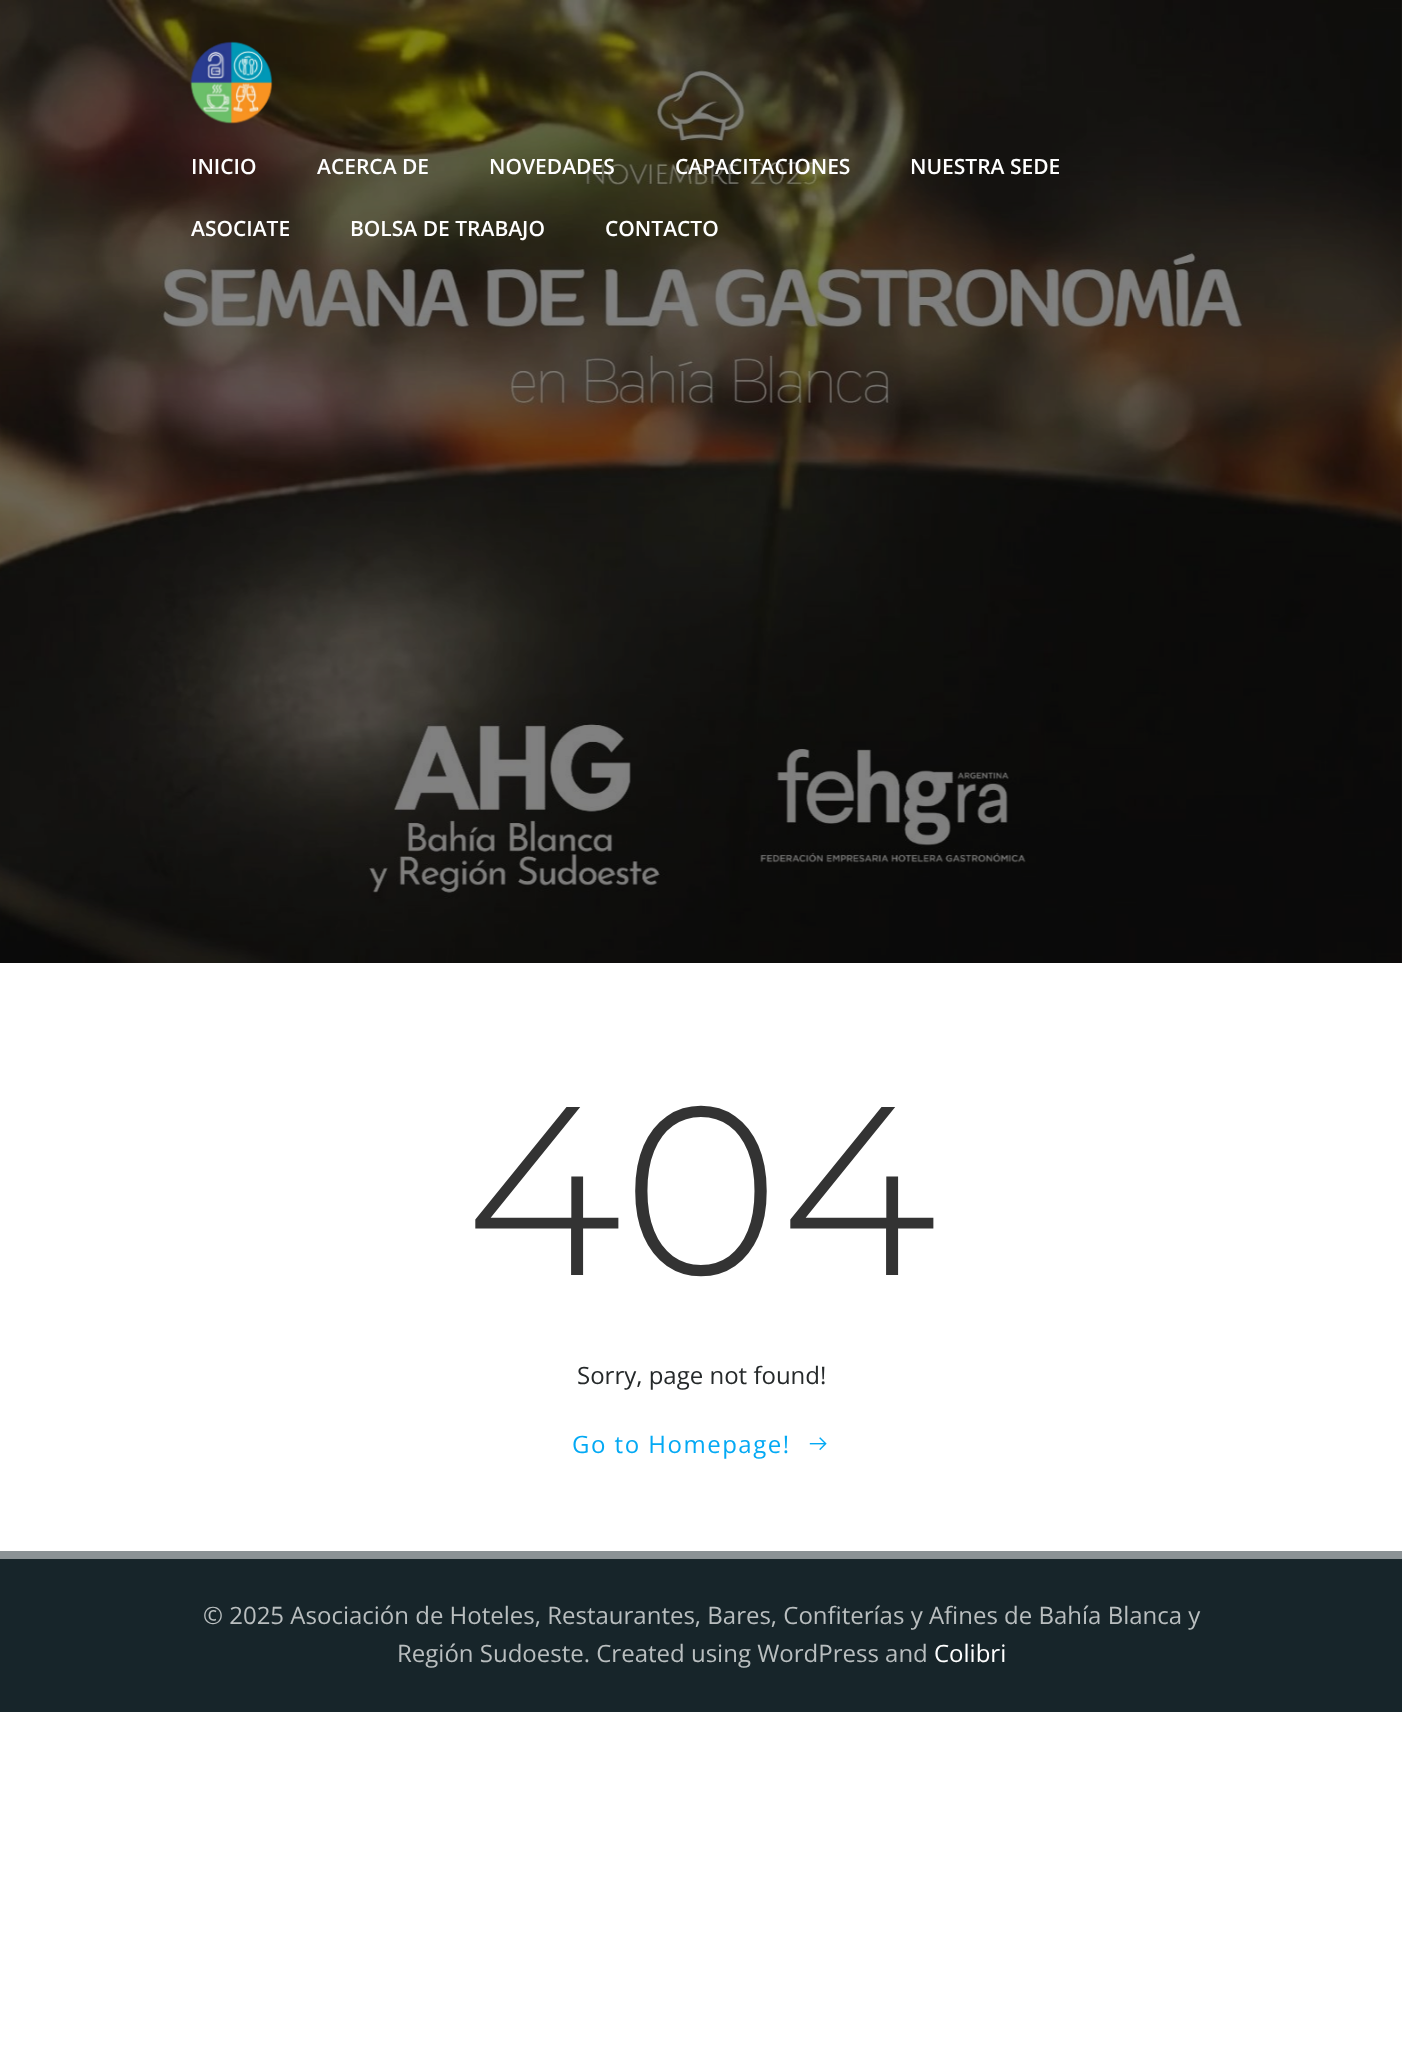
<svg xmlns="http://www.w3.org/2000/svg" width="1402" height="2060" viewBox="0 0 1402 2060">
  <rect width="100%" height="100%" fill="#ffffff"/>
  <image x="0" y="0" width="1402" height="963" href="img1.png"/>
  <image x="190" y="41" width="83" height="83" href="img2.png"/>
  <text x="191" y="174" font-family="Open Sans" font-size="21" font-weight="600" fill="#ffffff">INICIO</text>
  <text x="317" y="174" font-family="Open Sans" font-size="21" font-weight="600" fill="#ffffff">ACERCA DE</text>
  <text x="489" y="174" font-family="Open Sans" font-size="21" font-weight="600" fill="#ffffff">NOVEDADES</text>
  <text x="675" y="174" font-family="Open Sans" font-size="21" font-weight="600" fill="#ffffff">CAPACITACIONES</text>
  <text x="910" y="174" font-family="Open Sans" font-size="21" font-weight="600" fill="#ffffff">NUESTRA SEDE</text>
  <text x="191" y="236" font-family="Open Sans" font-size="21" font-weight="600" fill="#ffffff">ASOCIATE</text>
  <text x="350" y="236" font-family="Open Sans" font-size="21" font-weight="600" fill="#ffffff">BOLSA DE TRABAJO</text>
  <text x="605" y="236" font-family="Open Sans" font-size="21" font-weight="600" fill="#ffffff">CONTACTO</text>
  <text x="465" y="1275" font-family="Montserrat" font-size="240" font-weight="300" fill="#333333">404</text>
  <text x="577" y="1384" font-family="Open Sans" font-size="24" fill="#25292a">Sorry, page not found!</text>
  <text x="572" y="1453" font-family="Open Sans" font-size="24" letter-spacing="1.5" fill="#03a9f4">Go to Homepage!</text>
  <image x="809" y="1437" width="18" height="14" href="img3.png"/>
  <rect x="0" y="1559" width="1402" height="153" fill="#17252a"/>
  <rect x="0" y="1551" width="1402" height="8" fill="#8b9295"/>
  <text x="203" y="1624" font-family="Open Sans" font-size="24" fill="#b9bebf">© 2025 Asociación de Hoteles, Restaurantes, Bares, Confiterías y Afines de Bahía Blanca y</text>
  <text x="397" y="1662" font-family="Open Sans" font-size="24" fill="#b9bebf">Región Sudoeste. Created using WordPress and</text>
  <text x="934" y="1662" font-family="Open Sans" font-size="24" fill="#ffffff">Colibri</text>
</svg>
